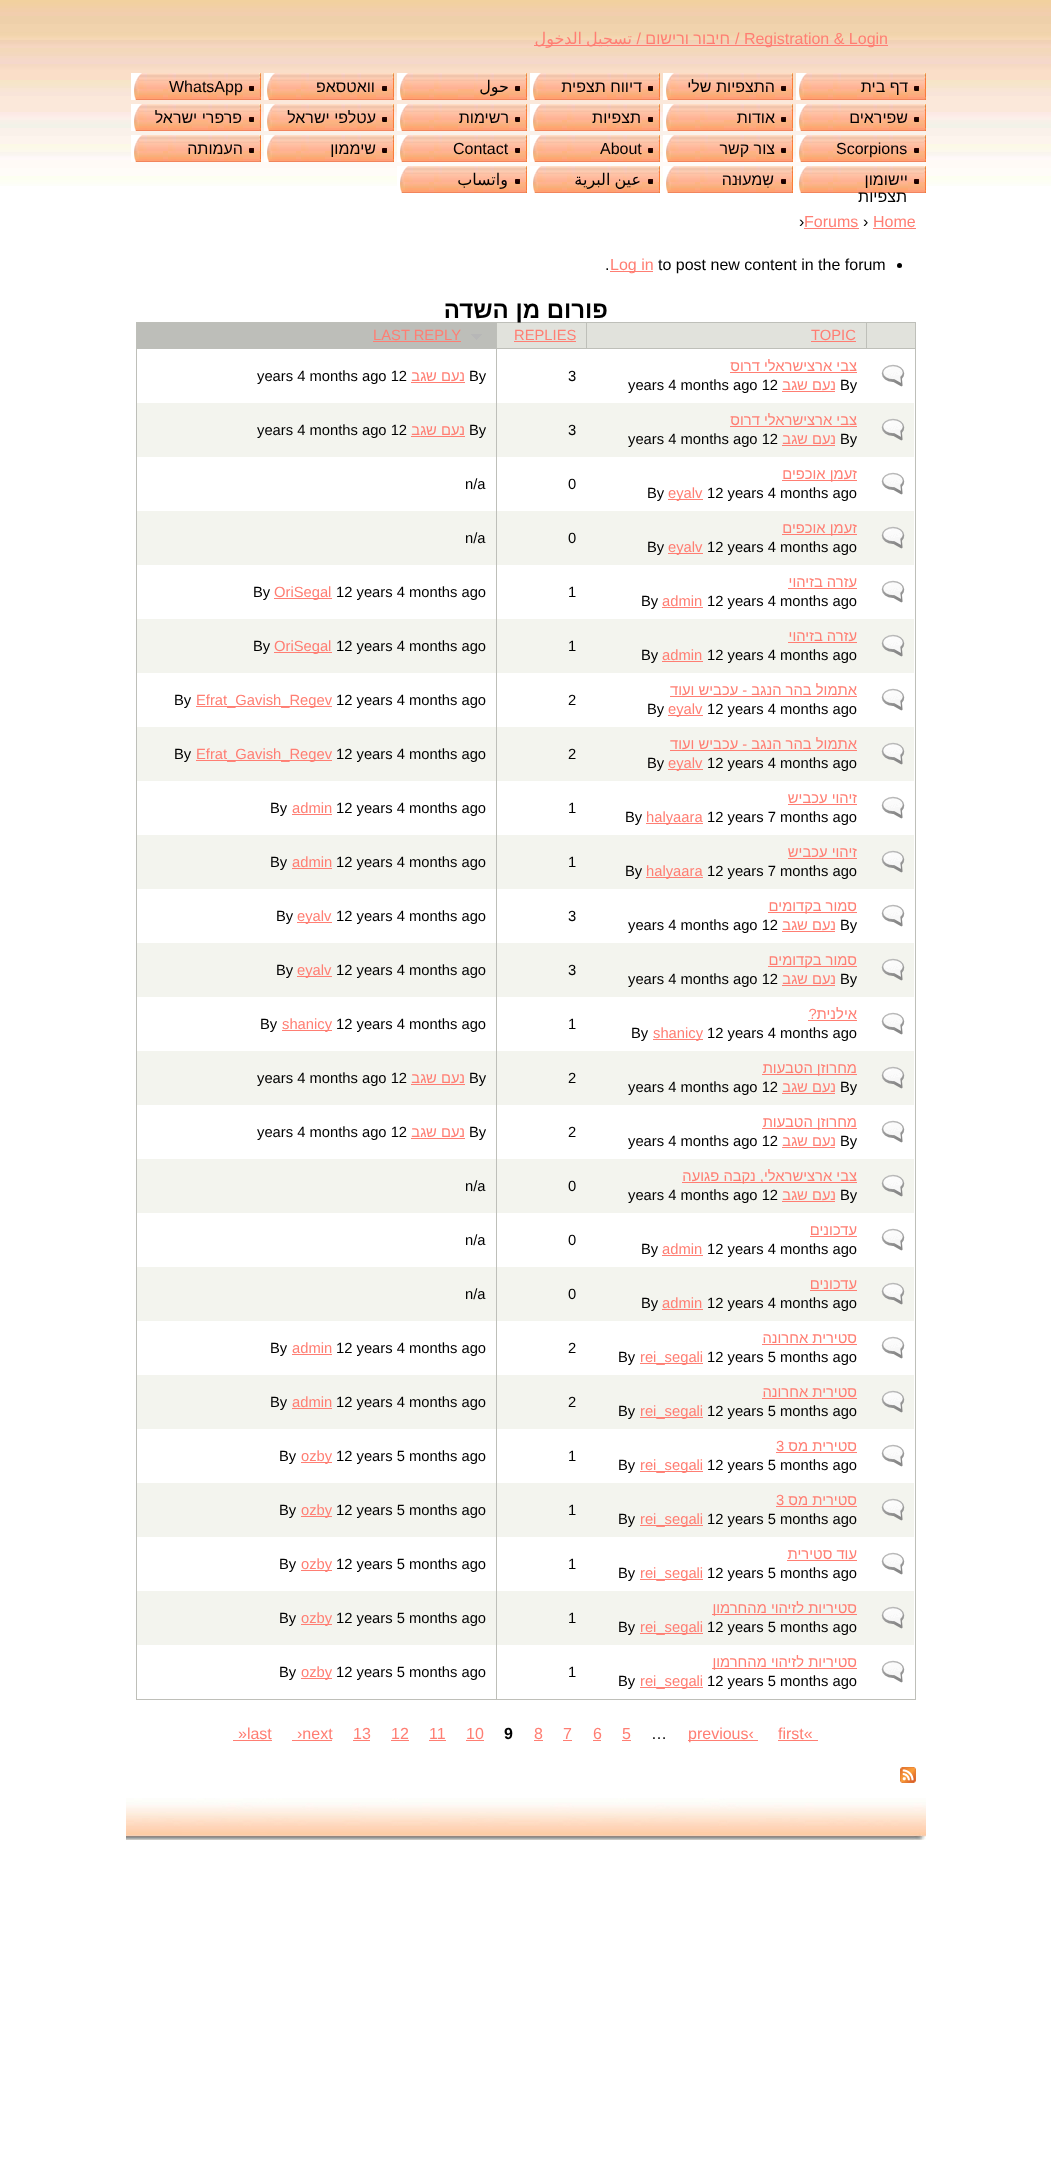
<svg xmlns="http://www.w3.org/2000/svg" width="1051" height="2178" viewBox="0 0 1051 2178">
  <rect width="100%" height="100%" fill="#ffffff"/>
  <image x="0" y="0" width="1051" height="186" href="img1.png"/>
  <rect x="534" y="45" width="354" height="1" fill="#ff7e73"/>
  <text x="582" y="44" font-family="DejaVu Sans" font-size="16" direction="rtl" fill="#ff7e73">الدخول</text>
  <text x="632" y="44" font-family="DejaVu Sans" font-size="16" direction="rtl" fill="#ff7e73">تسجيل</text>
  <text x="730" y="44" font-family="Liberation Sans" font-size="16" direction="rtl" fill="#ff7e73">חיבור ורישום /</text>
  <text x="735" y="44" font-family="Liberation Sans" font-size="16" fill="#ff7e73">/ Registration &amp; Login</text>
  <image x="131" y="73" width="130" height="27" href="img2.png"/>
  <text x="169" y="92" font-family="Liberation Sans" font-size="16" fill="#000000">WhatsApp</text>
  <image x="264" y="73" width="130" height="27" href="img2.png"/>
  <text x="375" y="92" font-family="Liberation Sans" font-size="16" direction="rtl" fill="#000000">וואטסאפ</text>
  <image x="397" y="73" width="130" height="27" href="img2.png"/>
  <text x="509" y="92" font-family="DejaVu Sans" font-size="16" direction="rtl" fill="#000000">حول</text>
  <image x="530" y="73" width="130" height="27" href="img2.png"/>
  <text x="642" y="92" font-family="Liberation Sans" font-size="16" direction="rtl" fill="#000000">דיווח תצפית</text>
  <image x="663" y="73" width="130" height="27" href="img2.png"/>
  <text x="775" y="92" font-family="Liberation Sans" font-size="16" direction="rtl" fill="#000000">התצפיות שלי</text>
  <image x="796" y="73" width="130" height="27" href="img2.png"/>
  <text x="908" y="92" font-family="Liberation Sans" font-size="16" direction="rtl" fill="#000000">דף בית</text>
  <image x="131" y="104" width="130" height="27" href="img2.png"/>
  <text x="242" y="123" font-family="Liberation Sans" font-size="16" direction="rtl" fill="#000000">פרפרי ישראל</text>
  <image x="264" y="104" width="130" height="27" href="img2.png"/>
  <text x="376" y="123" font-family="Liberation Sans" font-size="16" direction="rtl" fill="#000000">עטלפי ישראל</text>
  <image x="397" y="104" width="130" height="27" href="img2.png"/>
  <text x="509" y="123" font-family="Liberation Sans" font-size="16" direction="rtl" fill="#000000">רשימות</text>
  <image x="530" y="104" width="130" height="27" href="img2.png"/>
  <text x="641" y="123" font-family="Liberation Sans" font-size="16" direction="rtl" fill="#000000">תצפיות</text>
  <image x="663" y="104" width="130" height="27" href="img2.png"/>
  <text x="775" y="123" font-family="Liberation Sans" font-size="16" direction="rtl" fill="#000000">אודות</text>
  <image x="796" y="104" width="130" height="27" href="img2.png"/>
  <text x="908" y="123" font-family="Liberation Sans" font-size="16" direction="rtl" fill="#000000">שפיראים</text>
  <image x="131" y="135" width="130" height="27" href="img2.png"/>
  <text x="243" y="154" font-family="Liberation Sans" font-size="16" direction="rtl" fill="#000000">העמותה</text>
  <image x="264" y="135" width="130" height="27" href="img2.png"/>
  <text x="376" y="154" font-family="Liberation Sans" font-size="16" direction="rtl" fill="#000000">שיממון</text>
  <image x="397" y="135" width="130" height="27" href="img2.png"/>
  <text x="453" y="154" font-family="Liberation Sans" font-size="16" fill="#000000">Contact</text>
  <image x="530" y="135" width="130" height="27" href="img2.png"/>
  <text x="600" y="154" font-family="Liberation Sans" font-size="16" fill="#000000">About</text>
  <image x="663" y="135" width="130" height="27" href="img2.png"/>
  <text x="775" y="154" font-family="Liberation Sans" font-size="16" direction="rtl" fill="#000000">צור קשר</text>
  <image x="796" y="135" width="130" height="27" href="img2.png"/>
  <text x="836" y="154" font-family="Liberation Sans" font-size="16" fill="#000000">Scorpions</text>
  <image x="397" y="166" width="130" height="27" href="img2.png"/>
  <text x="508" y="185" font-family="DejaVu Sans" font-size="16" direction="rtl" fill="#000000">واتساب</text>
  <image x="530" y="166" width="130" height="27" href="img2.png"/>
  <text x="641" y="185" word-spacing="-1" font-family="DejaVu Sans" font-size="16" direction="rtl" fill="#000000">عين البرية</text>
  <image x="663" y="166" width="130" height="27" href="img2.png"/>
  <text x="774" y="185" font-family="Liberation Sans" font-size="16" direction="rtl" fill="#000000">שִמעוּנה</text>
  <image x="796" y="166" width="130" height="27" href="img2.png"/>
  <text x="908" y="185" font-family="Liberation Sans" font-size="16" direction="rtl" fill="#000000">יישומון</text>
  <text x="907" y="202" font-family="Liberation Sans" font-size="16" direction="rtl" fill="#000000">תצפיות</text>
  <text x="799" y="227" font-family="Liberation Sans" font-size="16" fill="#000000">›</text>
  <rect x="804" y="228" width="55" height="1" fill="#ff7e73"/>
  <text x="804" y="227" font-family="Liberation Sans" font-size="16" fill="#ff7e73">Forums</text>
  <text x="863" y="227" font-family="Liberation Sans" font-size="16" fill="#000000">›</text>
  <text x="873" y="227" font-family="Liberation Sans" font-size="16" fill="#ff7e73">Home</text>
  <rect x="873" y="228" width="43" height="1" fill="#ff7e73"/>
  <rect x="610" y="271" width="43" height="1" fill="#ff7e73"/>
  <text x="610" y="270" font-family="Liberation Sans" font-size="16" fill="#ff7e73">Log in</text>
  <text x="658" y="270" font-family="Liberation Sans" font-size="16" fill="#000000">to post new content in the forum</text>
  <circle cx="899.5" cy="265.5" r="2.5" fill="#000000"/>
  <text x="605" y="270" font-family="Liberation Sans" font-size="16" fill="#000000">.</text>
  <rect x="136" y="322" width="780" height="1" fill="#bebfb9"/>
  <rect x="586" y="322" width="1" height="27" fill="#bebfb9"/>
  <rect x="915" y="322" width="1" height="1378" fill="#bebfb9"/>
  <rect x="136" y="1699" width="780" height="1" fill="#bebfb9"/>
  <rect x="137" y="403" width="777" height="54" fill="#f3f4ee"/>
  <rect x="137" y="511" width="777" height="54" fill="#f3f4ee"/>
  <rect x="137" y="619" width="777" height="54" fill="#f3f4ee"/>
  <rect x="137" y="727" width="777" height="54" fill="#f3f4ee"/>
  <rect x="137" y="835" width="777" height="54" fill="#f3f4ee"/>
  <rect x="137" y="943" width="777" height="54" fill="#f3f4ee"/>
  <rect x="137" y="1051" width="777" height="54" fill="#f3f4ee"/>
  <rect x="137" y="1159" width="777" height="54" fill="#f3f4ee"/>
  <rect x="137" y="1267" width="777" height="54" fill="#f3f4ee"/>
  <rect x="137" y="1375" width="777" height="54" fill="#f3f4ee"/>
  <rect x="137" y="1483" width="777" height="54" fill="#f3f4ee"/>
  <rect x="137" y="1591" width="777" height="54" fill="#f3f4ee"/>
  <rect x="496" y="322" width="1" height="1378" fill="#bebfb9"/>
  <text x="608" y="318" font-family="Liberation Sans" font-size="24" font-weight="bold" direction="rtl" fill="#000000">פורום מן השדה</text>
  <rect x="136" y="322" width="1" height="1378" fill="#bebfb9"/>
  <rect x="137" y="323" width="359" height="26" fill="#bdbeb9"/>
  <text x="373" y="340" font-family="Liberation Sans" font-size="14.75" fill="#ff7e73">LAST REPLY</text>
  <rect x="373" y="341" width="88" height="1" fill="#ff7e73"/>
  <image x="471" y="334" width="11" height="6" href="img3.png"/>
  <rect x="497" y="323" width="89" height="25" fill="#e1e2dc"/>
  <rect x="496" y="348" width="91" height="1" fill="#bebfb9"/>
  <text x="514" y="340" font-family="Liberation Sans" font-size="14.75" fill="#ff7e73">REPLIES</text>
  <rect x="514" y="341" width="62" height="1" fill="#ff7e73"/>
  <rect x="587" y="323" width="279" height="25" fill="#e1e2dc"/>
  <rect x="866" y="322" width="1" height="27" fill="#bebfb9"/>
  <rect x="586" y="348" width="330" height="1" fill="#bebfb9"/>
  <text x="811" y="340" font-family="Liberation Sans" font-size="14.75" fill="#ff7e73">TOPIC</text>
  <rect x="811" y="341" width="45" height="1" fill="#ff7e73"/>
  <rect x="867" y="323" width="48" height="25" fill="#e1e2dc"/>
  <text x="257" y="381" font-family="Liberation Sans" font-size="14.75" fill="#000000">years 4 months ago 12</text>
  <text x="465" y="381" font-family="Liberation Sans" font-size="14.75" direction="rtl" fill="#ff7e73">נעם שגב</text>
  <rect x="411" y="382" width="54" height="1" fill="#ff7e73"/>
  <text x="469" y="381" font-family="Liberation Sans" font-size="14.75" fill="#000000">By</text>
  <text x="568" y="381" font-family="Liberation Sans" font-size="14.75" fill="#000000">3</text>
  <text x="857" y="371" font-family="Liberation Sans" font-size="14.75" direction="rtl" fill="#ff7e73">צבי ארצישראלי דרוס</text>
  <rect x="730" y="372" width="127" height="1" fill="#ff7e73"/>
  <text x="628" y="390" font-family="Liberation Sans" font-size="14.75" fill="#000000">years 4 months ago 12</text>
  <text x="836" y="390" font-family="Liberation Sans" font-size="14.75" direction="rtl" fill="#ff7e73">נעם שגב</text>
  <rect x="782" y="391" width="53" height="1" fill="#ff7e73"/>
  <text x="840" y="390" font-family="Liberation Sans" font-size="14.75" fill="#000000">By</text>
  <image x="881" y="364" width="24" height="23" href="img4.png"/>
  <text x="257" y="435" font-family="Liberation Sans" font-size="14.75" fill="#000000">years 4 months ago 12</text>
  <text x="465" y="435" font-family="Liberation Sans" font-size="14.75" direction="rtl" fill="#ff7e73">נעם שגב</text>
  <rect x="411" y="436" width="54" height="1" fill="#ff7e73"/>
  <text x="469" y="435" font-family="Liberation Sans" font-size="14.75" fill="#000000">By</text>
  <text x="568" y="435" font-family="Liberation Sans" font-size="14.75" fill="#000000">3</text>
  <text x="857" y="425" font-family="Liberation Sans" font-size="14.75" direction="rtl" fill="#ff7e73">צבי ארצישראלי דרוס</text>
  <rect x="730" y="426" width="127" height="1" fill="#ff7e73"/>
  <text x="628" y="444" font-family="Liberation Sans" font-size="14.75" fill="#000000">years 4 months ago 12</text>
  <text x="836" y="444" font-family="Liberation Sans" font-size="14.75" direction="rtl" fill="#ff7e73">נעם שגב</text>
  <rect x="782" y="445" width="53" height="1" fill="#ff7e73"/>
  <text x="840" y="444" font-family="Liberation Sans" font-size="14.75" fill="#000000">By</text>
  <image x="881" y="418" width="24" height="23" href="img5.png"/>
  <text x="465" y="489" font-family="Liberation Sans" font-size="14.75" fill="#000000">n/a</text>
  <text x="568" y="489" font-family="Liberation Sans" font-size="14.75" fill="#000000">0</text>
  <rect x="782" y="480" width="75" height="1" fill="#ff7e73"/>
  <text x="857" y="479" font-family="Liberation Sans" font-size="14.75" direction="rtl" fill="#ff7e73">זעמן אוכפים</text>
  <text x="647" y="498" font-family="Liberation Sans" font-size="14.75" fill="#000000">By</text>
  <rect x="668" y="499" width="35" height="1" fill="#ff7e73"/>
  <text x="668" y="498" font-family="Liberation Sans" font-size="14.75" fill="#ff7e73">eyalv</text>
  <text x="707" y="498" font-family="Liberation Sans" font-size="14.75" fill="#000000">12 years 4 months ago</text>
  <image x="881" y="472" width="24" height="23" href="img4.png"/>
  <text x="465" y="543" font-family="Liberation Sans" font-size="14.75" fill="#000000">n/a</text>
  <text x="568" y="543" font-family="Liberation Sans" font-size="14.75" fill="#000000">0</text>
  <rect x="782" y="534" width="75" height="1" fill="#ff7e73"/>
  <text x="857" y="533" font-family="Liberation Sans" font-size="14.75" direction="rtl" fill="#ff7e73">זעמן אוכפים</text>
  <text x="647" y="552" font-family="Liberation Sans" font-size="14.75" fill="#000000">By</text>
  <rect x="668" y="553" width="35" height="1" fill="#ff7e73"/>
  <text x="668" y="552" font-family="Liberation Sans" font-size="14.75" fill="#ff7e73">eyalv</text>
  <text x="707" y="552" font-family="Liberation Sans" font-size="14.75" fill="#000000">12 years 4 months ago</text>
  <image x="881" y="526" width="24" height="23" href="img5.png"/>
  <text x="253" y="597" font-family="Liberation Sans" font-size="14.75" fill="#000000">By</text>
  <rect x="274" y="598" width="58" height="1" fill="#ff7e73"/>
  <text x="274" y="597" font-family="Liberation Sans" font-size="14.75" fill="#ff7e73">OriSegal</text>
  <text x="336" y="597" font-family="Liberation Sans" font-size="14.75" fill="#000000">12 years 4 months ago</text>
  <text x="568" y="597" font-family="Liberation Sans" font-size="14.75" fill="#000000">1</text>
  <text x="857" y="587" font-family="Liberation Sans" font-size="14.75" direction="rtl" fill="#ff7e73">עזרה בזיהוי</text>
  <rect x="788" y="588" width="69" height="1" fill="#ff7e73"/>
  <text x="641" y="606" font-family="Liberation Sans" font-size="14.75" fill="#000000">By</text>
  <rect x="662" y="607" width="41" height="1" fill="#ff7e73"/>
  <text x="662" y="606" font-family="Liberation Sans" font-size="14.75" fill="#ff7e73">admin</text>
  <text x="707" y="606" font-family="Liberation Sans" font-size="14.75" fill="#000000">12 years 4 months ago</text>
  <image x="881" y="580" width="24" height="23" href="img4.png"/>
  <text x="253" y="651" font-family="Liberation Sans" font-size="14.75" fill="#000000">By</text>
  <rect x="274" y="652" width="58" height="1" fill="#ff7e73"/>
  <text x="274" y="651" font-family="Liberation Sans" font-size="14.75" fill="#ff7e73">OriSegal</text>
  <text x="336" y="651" font-family="Liberation Sans" font-size="14.75" fill="#000000">12 years 4 months ago</text>
  <text x="568" y="651" font-family="Liberation Sans" font-size="14.75" fill="#000000">1</text>
  <text x="857" y="641" font-family="Liberation Sans" font-size="14.75" direction="rtl" fill="#ff7e73">עזרה בזיהוי</text>
  <rect x="788" y="642" width="69" height="1" fill="#ff7e73"/>
  <text x="641" y="660" font-family="Liberation Sans" font-size="14.75" fill="#000000">By</text>
  <rect x="662" y="661" width="41" height="1" fill="#ff7e73"/>
  <text x="662" y="660" font-family="Liberation Sans" font-size="14.75" fill="#ff7e73">admin</text>
  <text x="707" y="660" font-family="Liberation Sans" font-size="14.75" fill="#000000">12 years 4 months ago</text>
  <image x="881" y="634" width="24" height="23" href="img5.png"/>
  <text x="174" y="705" font-family="Liberation Sans" font-size="14.75" fill="#000000">By</text>
  <rect x="196" y="706" width="136" height="1" fill="#ff7e73"/>
  <text x="196" y="705" font-family="Liberation Sans" font-size="14.75" fill="#ff7e73">Efrat_Gavish_Regev</text>
  <text x="336" y="705" font-family="Liberation Sans" font-size="14.75" fill="#000000">12 years 4 months ago</text>
  <text x="568" y="705" font-family="Liberation Sans" font-size="14.75" fill="#000000">2</text>
  <text x="857" y="695" font-family="Liberation Sans" font-size="14.75" direction="rtl" fill="#ff7e73">אתמול בהר הנגב - עכביש ועוד</text>
  <rect x="670" y="696" width="187" height="1" fill="#ff7e73"/>
  <text x="647" y="714" font-family="Liberation Sans" font-size="14.75" fill="#000000">By</text>
  <rect x="668" y="715" width="35" height="1" fill="#ff7e73"/>
  <text x="668" y="714" font-family="Liberation Sans" font-size="14.75" fill="#ff7e73">eyalv</text>
  <text x="707" y="714" font-family="Liberation Sans" font-size="14.75" fill="#000000">12 years 4 months ago</text>
  <image x="881" y="688" width="24" height="23" href="img4.png"/>
  <text x="174" y="759" font-family="Liberation Sans" font-size="14.75" fill="#000000">By</text>
  <rect x="196" y="760" width="136" height="1" fill="#ff7e73"/>
  <text x="196" y="759" font-family="Liberation Sans" font-size="14.75" fill="#ff7e73">Efrat_Gavish_Regev</text>
  <text x="336" y="759" font-family="Liberation Sans" font-size="14.75" fill="#000000">12 years 4 months ago</text>
  <text x="568" y="759" font-family="Liberation Sans" font-size="14.75" fill="#000000">2</text>
  <text x="857" y="749" font-family="Liberation Sans" font-size="14.75" direction="rtl" fill="#ff7e73">אתמול בהר הנגב - עכביש ועוד</text>
  <rect x="670" y="750" width="187" height="1" fill="#ff7e73"/>
  <text x="647" y="768" font-family="Liberation Sans" font-size="14.75" fill="#000000">By</text>
  <rect x="668" y="769" width="35" height="1" fill="#ff7e73"/>
  <text x="668" y="768" font-family="Liberation Sans" font-size="14.75" fill="#ff7e73">eyalv</text>
  <text x="707" y="768" font-family="Liberation Sans" font-size="14.75" fill="#000000">12 years 4 months ago</text>
  <image x="881" y="742" width="24" height="23" href="img5.png"/>
  <text x="270" y="813" font-family="Liberation Sans" font-size="14.75" fill="#000000">By</text>
  <text x="292" y="813" font-family="Liberation Sans" font-size="14.75" fill="#ff7e73">admin</text>
  <rect x="292" y="814" width="40" height="1" fill="#ff7e73"/>
  <text x="336" y="813" font-family="Liberation Sans" font-size="14.75" fill="#000000">12 years 4 months ago</text>
  <text x="568" y="813" font-family="Liberation Sans" font-size="14.75" fill="#000000">1</text>
  <text x="857" y="803" font-family="Liberation Sans" font-size="14.75" direction="rtl" fill="#ff7e73">זיהוי עכביש</text>
  <rect x="788" y="804" width="69" height="1" fill="#ff7e73"/>
  <text x="625" y="822" font-family="Liberation Sans" font-size="14.75" fill="#000000">By</text>
  <rect x="646" y="823" width="57" height="1" fill="#ff7e73"/>
  <text x="646" y="822" font-family="Liberation Sans" font-size="14.75" fill="#ff7e73">halyaara</text>
  <text x="707" y="822" font-family="Liberation Sans" font-size="14.75" fill="#000000">12 years 7 months ago</text>
  <image x="881" y="796" width="24" height="23" href="img4.png"/>
  <text x="270" y="867" font-family="Liberation Sans" font-size="14.75" fill="#000000">By</text>
  <text x="292" y="867" font-family="Liberation Sans" font-size="14.75" fill="#ff7e73">admin</text>
  <rect x="292" y="868" width="40" height="1" fill="#ff7e73"/>
  <text x="336" y="867" font-family="Liberation Sans" font-size="14.75" fill="#000000">12 years 4 months ago</text>
  <text x="568" y="867" font-family="Liberation Sans" font-size="14.75" fill="#000000">1</text>
  <text x="857" y="857" font-family="Liberation Sans" font-size="14.75" direction="rtl" fill="#ff7e73">זיהוי עכביש</text>
  <rect x="788" y="858" width="69" height="1" fill="#ff7e73"/>
  <text x="625" y="876" font-family="Liberation Sans" font-size="14.75" fill="#000000">By</text>
  <rect x="646" y="877" width="57" height="1" fill="#ff7e73"/>
  <text x="646" y="876" font-family="Liberation Sans" font-size="14.75" fill="#ff7e73">halyaara</text>
  <text x="707" y="876" font-family="Liberation Sans" font-size="14.75" fill="#000000">12 years 7 months ago</text>
  <image x="881" y="850" width="24" height="23" href="img5.png"/>
  <text x="276" y="921" font-family="Liberation Sans" font-size="14.75" fill="#000000">By</text>
  <rect x="297" y="922" width="35" height="1" fill="#ff7e73"/>
  <text x="297" y="921" font-family="Liberation Sans" font-size="14.75" fill="#ff7e73">eyalv</text>
  <text x="336" y="921" font-family="Liberation Sans" font-size="14.75" fill="#000000">12 years 4 months ago</text>
  <text x="568" y="921" font-family="Liberation Sans" font-size="14.75" fill="#000000">3</text>
  <rect x="768" y="912" width="89" height="1" fill="#ff7e73"/>
  <text x="857" y="911" font-family="Liberation Sans" font-size="14.75" direction="rtl" fill="#ff7e73">סמור בקדומים</text>
  <text x="628" y="930" font-family="Liberation Sans" font-size="14.75" fill="#000000">years 4 months ago 12</text>
  <text x="836" y="930" font-family="Liberation Sans" font-size="14.75" direction="rtl" fill="#ff7e73">נעם שגב</text>
  <rect x="782" y="931" width="53" height="1" fill="#ff7e73"/>
  <text x="840" y="930" font-family="Liberation Sans" font-size="14.75" fill="#000000">By</text>
  <image x="881" y="904" width="24" height="23" href="img4.png"/>
  <text x="276" y="975" font-family="Liberation Sans" font-size="14.75" fill="#000000">By</text>
  <rect x="297" y="976" width="35" height="1" fill="#ff7e73"/>
  <text x="297" y="975" font-family="Liberation Sans" font-size="14.75" fill="#ff7e73">eyalv</text>
  <text x="336" y="975" font-family="Liberation Sans" font-size="14.75" fill="#000000">12 years 4 months ago</text>
  <text x="568" y="975" font-family="Liberation Sans" font-size="14.75" fill="#000000">3</text>
  <rect x="768" y="966" width="89" height="1" fill="#ff7e73"/>
  <text x="857" y="965" font-family="Liberation Sans" font-size="14.75" direction="rtl" fill="#ff7e73">סמור בקדומים</text>
  <text x="628" y="984" font-family="Liberation Sans" font-size="14.75" fill="#000000">years 4 months ago 12</text>
  <text x="836" y="984" font-family="Liberation Sans" font-size="14.75" direction="rtl" fill="#ff7e73">נעם שגב</text>
  <rect x="782" y="985" width="53" height="1" fill="#ff7e73"/>
  <text x="840" y="984" font-family="Liberation Sans" font-size="14.75" fill="#000000">By</text>
  <image x="881" y="958" width="24" height="23" href="img5.png"/>
  <text x="260" y="1029" font-family="Liberation Sans" font-size="14.75" fill="#000000">By</text>
  <rect x="282" y="1030" width="50" height="1" fill="#ff7e73"/>
  <text x="282" y="1029" font-family="Liberation Sans" font-size="14.75" fill="#ff7e73">shanicy</text>
  <text x="336" y="1029" font-family="Liberation Sans" font-size="14.75" fill="#000000">12 years 4 months ago</text>
  <text x="568" y="1029" font-family="Liberation Sans" font-size="14.75" fill="#000000">1</text>
  <text x="857" y="1019" font-family="Liberation Sans" font-size="14.75" direction="rtl" fill="#ff7e73">אילנית?</text>
  <rect x="808" y="1020" width="49" height="1" fill="#ff7e73"/>
  <text x="631" y="1038" font-family="Liberation Sans" font-size="14.75" fill="#000000">By</text>
  <rect x="653" y="1039" width="50" height="1" fill="#ff7e73"/>
  <text x="653" y="1038" font-family="Liberation Sans" font-size="14.75" fill="#ff7e73">shanicy</text>
  <text x="707" y="1038" font-family="Liberation Sans" font-size="14.75" fill="#000000">12 years 4 months ago</text>
  <image x="881" y="1012" width="24" height="23" href="img4.png"/>
  <text x="257" y="1083" font-family="Liberation Sans" font-size="14.75" fill="#000000">years 4 months ago 12</text>
  <text x="465" y="1083" font-family="Liberation Sans" font-size="14.75" direction="rtl" fill="#ff7e73">נעם שגב</text>
  <rect x="411" y="1084" width="54" height="1" fill="#ff7e73"/>
  <text x="469" y="1083" font-family="Liberation Sans" font-size="14.75" fill="#000000">By</text>
  <text x="568" y="1083" font-family="Liberation Sans" font-size="14.75" fill="#000000">2</text>
  <rect x="762" y="1074" width="95" height="1" fill="#ff7e73"/>
  <text x="857" y="1073" font-family="Liberation Sans" font-size="14.75" direction="rtl" fill="#ff7e73">מחרוזן הטבעות</text>
  <text x="628" y="1092" font-family="Liberation Sans" font-size="14.75" fill="#000000">years 4 months ago 12</text>
  <text x="836" y="1092" font-family="Liberation Sans" font-size="14.75" direction="rtl" fill="#ff7e73">נעם שגב</text>
  <rect x="782" y="1093" width="53" height="1" fill="#ff7e73"/>
  <text x="840" y="1092" font-family="Liberation Sans" font-size="14.75" fill="#000000">By</text>
  <image x="881" y="1066" width="24" height="23" href="img5.png"/>
  <text x="257" y="1137" font-family="Liberation Sans" font-size="14.75" fill="#000000">years 4 months ago 12</text>
  <text x="465" y="1137" font-family="Liberation Sans" font-size="14.75" direction="rtl" fill="#ff7e73">נעם שגב</text>
  <rect x="411" y="1138" width="54" height="1" fill="#ff7e73"/>
  <text x="469" y="1137" font-family="Liberation Sans" font-size="14.75" fill="#000000">By</text>
  <text x="568" y="1137" font-family="Liberation Sans" font-size="14.75" fill="#000000">2</text>
  <rect x="762" y="1128" width="95" height="1" fill="#ff7e73"/>
  <text x="857" y="1127" font-family="Liberation Sans" font-size="14.75" direction="rtl" fill="#ff7e73">מחרוזן הטבעות</text>
  <text x="628" y="1146" font-family="Liberation Sans" font-size="14.75" fill="#000000">years 4 months ago 12</text>
  <text x="836" y="1146" font-family="Liberation Sans" font-size="14.75" direction="rtl" fill="#ff7e73">נעם שגב</text>
  <rect x="782" y="1147" width="53" height="1" fill="#ff7e73"/>
  <text x="840" y="1146" font-family="Liberation Sans" font-size="14.75" fill="#000000">By</text>
  <image x="881" y="1120" width="24" height="23" href="img4.png"/>
  <text x="465" y="1191" font-family="Liberation Sans" font-size="14.75" fill="#000000">n/a</text>
  <text x="568" y="1191" font-family="Liberation Sans" font-size="14.75" fill="#000000">0</text>
  <rect x="682" y="1182" width="175" height="1" fill="#ff7e73"/>
  <text x="857" y="1181" font-family="Liberation Sans" font-size="14.75" direction="rtl" fill="#ff7e73">צבי ארצישראלי, נקבה פגועה</text>
  <text x="628" y="1200" font-family="Liberation Sans" font-size="14.75" fill="#000000">years 4 months ago 12</text>
  <text x="836" y="1200" font-family="Liberation Sans" font-size="14.75" direction="rtl" fill="#ff7e73">נעם שגב</text>
  <rect x="782" y="1201" width="53" height="1" fill="#ff7e73"/>
  <text x="840" y="1200" font-family="Liberation Sans" font-size="14.75" fill="#000000">By</text>
  <image x="881" y="1174" width="24" height="23" href="img5.png"/>
  <text x="465" y="1245" font-family="Liberation Sans" font-size="14.75" fill="#000000">n/a</text>
  <text x="568" y="1245" font-family="Liberation Sans" font-size="14.75" fill="#000000">0</text>
  <text x="857" y="1235" font-family="Liberation Sans" font-size="14.75" direction="rtl" fill="#ff7e73">עדכונים</text>
  <rect x="810" y="1236" width="47" height="1" fill="#ff7e73"/>
  <text x="641" y="1254" font-family="Liberation Sans" font-size="14.75" fill="#000000">By</text>
  <rect x="662" y="1255" width="41" height="1" fill="#ff7e73"/>
  <text x="662" y="1254" font-family="Liberation Sans" font-size="14.75" fill="#ff7e73">admin</text>
  <text x="707" y="1254" font-family="Liberation Sans" font-size="14.75" fill="#000000">12 years 4 months ago</text>
  <image x="881" y="1228" width="24" height="23" href="img4.png"/>
  <text x="465" y="1299" font-family="Liberation Sans" font-size="14.75" fill="#000000">n/a</text>
  <text x="568" y="1299" font-family="Liberation Sans" font-size="14.75" fill="#000000">0</text>
  <text x="857" y="1289" font-family="Liberation Sans" font-size="14.75" direction="rtl" fill="#ff7e73">עדכונים</text>
  <rect x="810" y="1290" width="47" height="1" fill="#ff7e73"/>
  <text x="641" y="1308" font-family="Liberation Sans" font-size="14.75" fill="#000000">By</text>
  <rect x="662" y="1309" width="41" height="1" fill="#ff7e73"/>
  <text x="662" y="1308" font-family="Liberation Sans" font-size="14.75" fill="#ff7e73">admin</text>
  <text x="707" y="1308" font-family="Liberation Sans" font-size="14.75" fill="#000000">12 years 4 months ago</text>
  <image x="881" y="1282" width="24" height="23" href="img5.png"/>
  <text x="270" y="1353" font-family="Liberation Sans" font-size="14.75" fill="#000000">By</text>
  <text x="292" y="1353" font-family="Liberation Sans" font-size="14.75" fill="#ff7e73">admin</text>
  <rect x="292" y="1354" width="40" height="1" fill="#ff7e73"/>
  <text x="336" y="1353" font-family="Liberation Sans" font-size="14.75" fill="#000000">12 years 4 months ago</text>
  <text x="568" y="1353" font-family="Liberation Sans" font-size="14.75" fill="#000000">2</text>
  <text x="857" y="1343" font-family="Liberation Sans" font-size="14.75" direction="rtl" fill="#ff7e73">סטירית אחרונה</text>
  <rect x="762" y="1344" width="95" height="1" fill="#ff7e73"/>
  <text x="618" y="1362" font-family="Liberation Sans" font-size="14.75" fill="#000000">By</text>
  <rect x="640" y="1363" width="63" height="1" fill="#ff7e73"/>
  <text x="640" y="1362" font-family="Liberation Sans" font-size="14.75" fill="#ff7e73">rei_segali</text>
  <text x="707" y="1362" font-family="Liberation Sans" font-size="14.75" fill="#000000">12 years 5 months ago</text>
  <image x="881" y="1336" width="24" height="23" href="img4.png"/>
  <text x="270" y="1407" font-family="Liberation Sans" font-size="14.75" fill="#000000">By</text>
  <text x="292" y="1407" font-family="Liberation Sans" font-size="14.75" fill="#ff7e73">admin</text>
  <rect x="292" y="1408" width="40" height="1" fill="#ff7e73"/>
  <text x="336" y="1407" font-family="Liberation Sans" font-size="14.75" fill="#000000">12 years 4 months ago</text>
  <text x="568" y="1407" font-family="Liberation Sans" font-size="14.75" fill="#000000">2</text>
  <text x="857" y="1397" font-family="Liberation Sans" font-size="14.75" direction="rtl" fill="#ff7e73">סטירית אחרונה</text>
  <rect x="762" y="1398" width="95" height="1" fill="#ff7e73"/>
  <text x="618" y="1416" font-family="Liberation Sans" font-size="14.75" fill="#000000">By</text>
  <rect x="640" y="1417" width="63" height="1" fill="#ff7e73"/>
  <text x="640" y="1416" font-family="Liberation Sans" font-size="14.75" fill="#ff7e73">rei_segali</text>
  <text x="707" y="1416" font-family="Liberation Sans" font-size="14.75" fill="#000000">12 years 5 months ago</text>
  <image x="881" y="1390" width="24" height="23" href="img5.png"/>
  <text x="279" y="1461" font-family="Liberation Sans" font-size="14.75" fill="#000000">By</text>
  <rect x="301" y="1462" width="31" height="1" fill="#ff7e73"/>
  <text x="301" y="1461" font-family="Liberation Sans" font-size="14.75" fill="#ff7e73">ozby</text>
  <text x="336" y="1461" font-family="Liberation Sans" font-size="14.75" fill="#000000">12 years 5 months ago</text>
  <text x="568" y="1461" font-family="Liberation Sans" font-size="14.75" fill="#000000">1</text>
  <text x="776" y="1451" font-family="Liberation Sans" font-size="14.75" fill="#ff7e73">3</text>
  <text x="857" y="1451" font-family="Liberation Sans" font-size="14.75" direction="rtl" fill="#ff7e73">סטירית מס</text>
  <rect x="776" y="1452" width="81" height="1" fill="#ff7e73"/>
  <text x="618" y="1470" font-family="Liberation Sans" font-size="14.75" fill="#000000">By</text>
  <rect x="640" y="1471" width="63" height="1" fill="#ff7e73"/>
  <text x="640" y="1470" font-family="Liberation Sans" font-size="14.75" fill="#ff7e73">rei_segali</text>
  <text x="707" y="1470" font-family="Liberation Sans" font-size="14.75" fill="#000000">12 years 5 months ago</text>
  <image x="881" y="1444" width="24" height="23" href="img4.png"/>
  <text x="279" y="1515" font-family="Liberation Sans" font-size="14.75" fill="#000000">By</text>
  <rect x="301" y="1516" width="31" height="1" fill="#ff7e73"/>
  <text x="301" y="1515" font-family="Liberation Sans" font-size="14.75" fill="#ff7e73">ozby</text>
  <text x="336" y="1515" font-family="Liberation Sans" font-size="14.75" fill="#000000">12 years 5 months ago</text>
  <text x="568" y="1515" font-family="Liberation Sans" font-size="14.75" fill="#000000">1</text>
  <text x="776" y="1505" font-family="Liberation Sans" font-size="14.75" fill="#ff7e73">3</text>
  <text x="857" y="1505" font-family="Liberation Sans" font-size="14.75" direction="rtl" fill="#ff7e73">סטירית מס</text>
  <rect x="776" y="1506" width="81" height="1" fill="#ff7e73"/>
  <text x="618" y="1524" font-family="Liberation Sans" font-size="14.75" fill="#000000">By</text>
  <rect x="640" y="1525" width="63" height="1" fill="#ff7e73"/>
  <text x="640" y="1524" font-family="Liberation Sans" font-size="14.75" fill="#ff7e73">rei_segali</text>
  <text x="707" y="1524" font-family="Liberation Sans" font-size="14.75" fill="#000000">12 years 5 months ago</text>
  <image x="881" y="1498" width="24" height="23" href="img5.png"/>
  <text x="279" y="1569" font-family="Liberation Sans" font-size="14.75" fill="#000000">By</text>
  <rect x="301" y="1570" width="31" height="1" fill="#ff7e73"/>
  <text x="301" y="1569" font-family="Liberation Sans" font-size="14.75" fill="#ff7e73">ozby</text>
  <text x="336" y="1569" font-family="Liberation Sans" font-size="14.75" fill="#000000">12 years 5 months ago</text>
  <text x="568" y="1569" font-family="Liberation Sans" font-size="14.75" fill="#000000">1</text>
  <text x="857" y="1559" font-family="Liberation Sans" font-size="14.75" direction="rtl" fill="#ff7e73">עוד סטירית</text>
  <rect x="787" y="1560" width="70" height="1" fill="#ff7e73"/>
  <text x="618" y="1578" font-family="Liberation Sans" font-size="14.75" fill="#000000">By</text>
  <rect x="640" y="1579" width="63" height="1" fill="#ff7e73"/>
  <text x="640" y="1578" font-family="Liberation Sans" font-size="14.75" fill="#ff7e73">rei_segali</text>
  <text x="707" y="1578" font-family="Liberation Sans" font-size="14.75" fill="#000000">12 years 5 months ago</text>
  <image x="881" y="1552" width="24" height="23" href="img4.png"/>
  <text x="279" y="1623" font-family="Liberation Sans" font-size="14.75" fill="#000000">By</text>
  <rect x="301" y="1624" width="31" height="1" fill="#ff7e73"/>
  <text x="301" y="1623" font-family="Liberation Sans" font-size="14.75" fill="#ff7e73">ozby</text>
  <text x="336" y="1623" font-family="Liberation Sans" font-size="14.75" fill="#000000">12 years 5 months ago</text>
  <text x="568" y="1623" font-family="Liberation Sans" font-size="14.75" fill="#000000">1</text>
  <rect x="712" y="1614" width="145" height="1" fill="#ff7e73"/>
  <text x="857" y="1613" font-family="Liberation Sans" font-size="14.75" direction="rtl" fill="#ff7e73">סטיריות לזיהוי מהחרמון</text>
  <text x="618" y="1632" font-family="Liberation Sans" font-size="14.75" fill="#000000">By</text>
  <rect x="640" y="1633" width="63" height="1" fill="#ff7e73"/>
  <text x="640" y="1632" font-family="Liberation Sans" font-size="14.75" fill="#ff7e73">rei_segali</text>
  <text x="707" y="1632" font-family="Liberation Sans" font-size="14.75" fill="#000000">12 years 5 months ago</text>
  <image x="881" y="1606" width="24" height="23" href="img5.png"/>
  <text x="279" y="1677" font-family="Liberation Sans" font-size="14.75" fill="#000000">By</text>
  <rect x="301" y="1678" width="31" height="1" fill="#ff7e73"/>
  <text x="301" y="1677" font-family="Liberation Sans" font-size="14.75" fill="#ff7e73">ozby</text>
  <text x="336" y="1677" font-family="Liberation Sans" font-size="14.75" fill="#000000">12 years 5 months ago</text>
  <text x="568" y="1677" font-family="Liberation Sans" font-size="14.75" fill="#000000">1</text>
  <rect x="712" y="1668" width="145" height="1" fill="#ff7e73"/>
  <text x="857" y="1667" font-family="Liberation Sans" font-size="14.75" direction="rtl" fill="#ff7e73">סטיריות לזיהוי מהחרמון</text>
  <text x="618" y="1686" font-family="Liberation Sans" font-size="14.75" fill="#000000">By</text>
  <rect x="640" y="1687" width="63" height="1" fill="#ff7e73"/>
  <text x="640" y="1686" font-family="Liberation Sans" font-size="14.75" fill="#ff7e73">rei_segali</text>
  <text x="707" y="1686" font-family="Liberation Sans" font-size="14.75" fill="#000000">12 years 5 months ago</text>
  <image x="881" y="1660" width="24" height="23" href="img4.png"/>
  <text x="238" y="1739" font-family="Liberation Sans" font-size="16" fill="#ff7e73">»last</text>
  <rect x="233" y="1740" width="39" height="1" fill="#ff7e73"/>
  <text x="297" y="1739" font-family="Liberation Sans" font-size="16" fill="#ff7e73">›next</text>
  <rect x="292" y="1740" width="40" height="1" fill="#ff7e73"/>
  <text x="353" y="1739" font-family="Liberation Sans" font-size="16" fill="#ff7e73">13</text>
  <rect x="353" y="1740" width="17" height="1" fill="#ff7e73"/>
  <text x="391" y="1739" font-family="Liberation Sans" font-size="16" fill="#ff7e73">12</text>
  <rect x="391" y="1740" width="18" height="1" fill="#ff7e73"/>
  <text x="429" y="1739" font-family="Liberation Sans" font-size="16" fill="#ff7e73">11</text>
  <rect x="429" y="1740" width="17" height="1" fill="#ff7e73"/>
  <text x="466" y="1739" font-family="Liberation Sans" font-size="16" fill="#ff7e73">10</text>
  <rect x="466" y="1740" width="18" height="1" fill="#ff7e73"/>
  <text x="504" y="1739" font-family="Liberation Sans" font-size="16" font-weight="bold" fill="#000000">9</text>
  <text x="534" y="1739" font-family="Liberation Sans" font-size="16" fill="#ff7e73">8</text>
  <rect x="534" y="1740" width="9" height="1" fill="#ff7e73"/>
  <text x="563" y="1739" font-family="Liberation Sans" font-size="16" fill="#ff7e73">7</text>
  <rect x="563" y="1740" width="9" height="1" fill="#ff7e73"/>
  <text x="593" y="1739" font-family="Liberation Sans" font-size="16" fill="#ff7e73">6</text>
  <rect x="593" y="1740" width="8" height="1" fill="#ff7e73"/>
  <text x="622" y="1739" font-family="Liberation Sans" font-size="16" fill="#ff7e73">5</text>
  <rect x="622" y="1740" width="9" height="1" fill="#ff7e73"/>
  <text x="651" y="1739" font-family="Liberation Sans" font-size="16" fill="#000000">…</text>
  <rect x="688" y="1740" width="70" height="1" fill="#ff7e73"/>
  <text x="688" y="1739" font-family="Liberation Sans" font-size="16" fill="#ff7e73">previous‹</text>
  <text x="778" y="1739" font-family="Liberation Sans" font-size="16" fill="#ff7e73">first«</text>
  <rect x="778" y="1740" width="40" height="1" fill="#ff7e73"/>
  <image x="900" y="1767" width="16" height="16" href="img6.png"/>
  <image x="126" y="1798" width="800" height="42" href="img7.png"/>
</svg>
